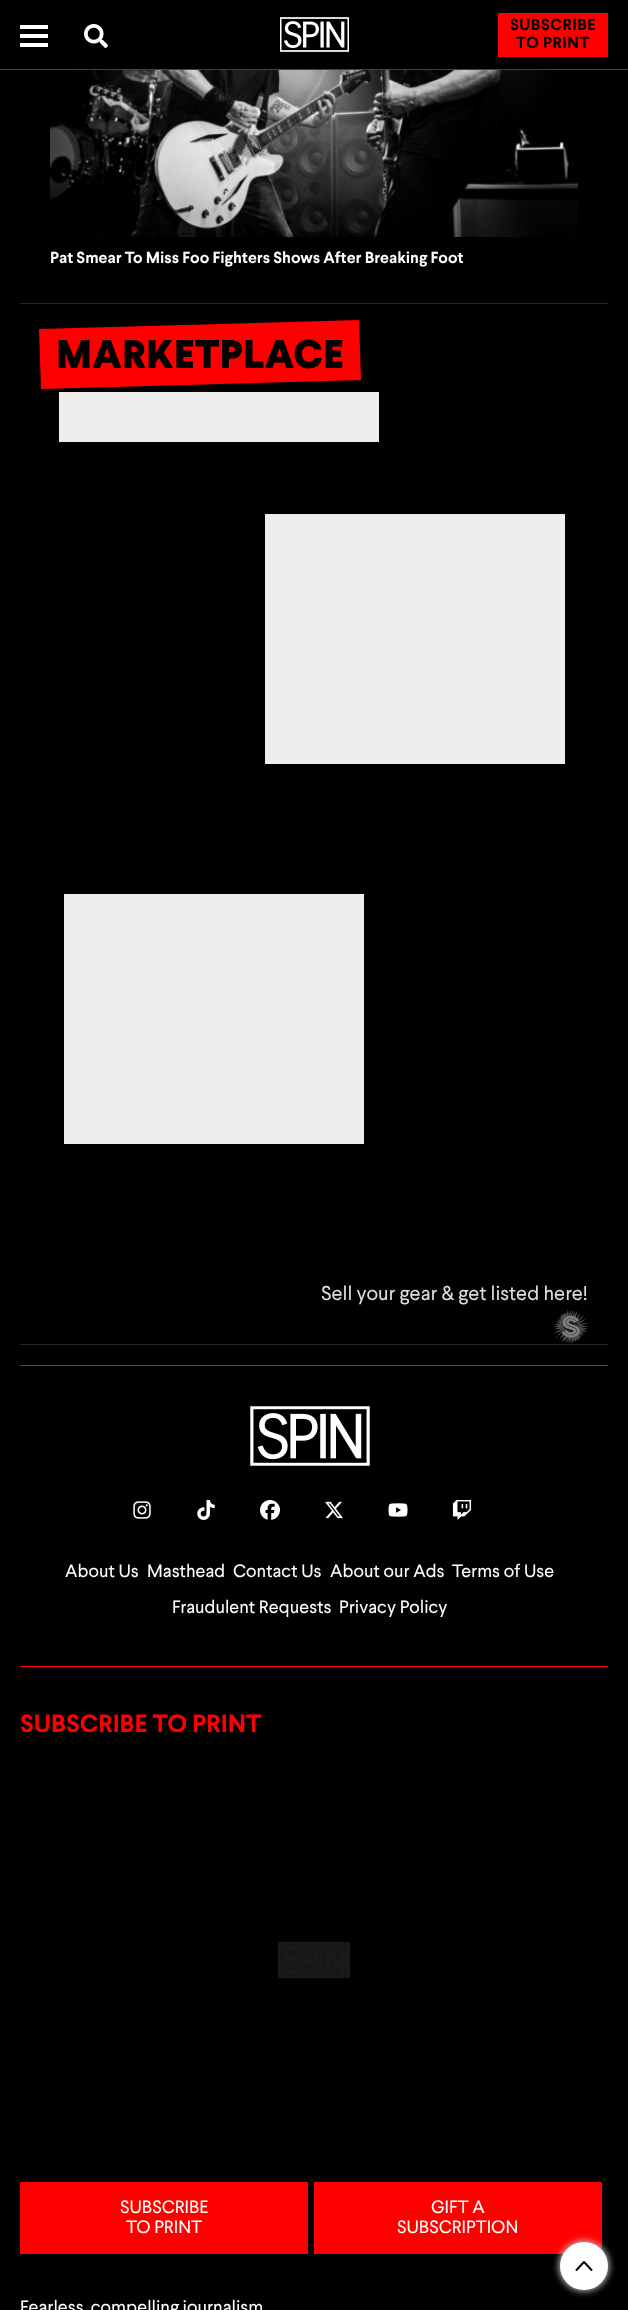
<svg xmlns="http://www.w3.org/2000/svg" width="628" height="2310" viewBox="0 0 628 2310">
  <defs>
    <filter id="blur1" x="-50%" y="-200%" width="200%" height="500%"><feGaussianBlur stdDeviation="3.5"/></filter>
  </defs>
  <rect width="100%" height="100%" fill="#000000"/>
  <rect x="0" y="69" width="628" height="1" fill="#424242"/>
  <rect x="20" y="43" width="28" height="4" fill="#ffffff"/>
  <rect x="20" y="25" width="28" height="4" fill="#ffffff"/>
  <rect x="20" y="34" width="28" height="4" fill="#ffffff"/>
  <image x="84" y="24" width="24" height="24" href="img1.png"/>
  <image x="280" y="17" width="69" height="35" href="img2.png"/>
  <rect x="498" y="13" width="110" height="44" fill="#ff0000"/>
  <text x="510" y="30" font-family="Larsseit" font-size="16" font-weight="bold" letter-spacing="0.5" fill="#000000">SUBSCRIBE</text>
  <text x="516" y="48" font-family="Larsseit" font-size="16" font-weight="bold" letter-spacing="0.5" fill="#000000">TO PRINT</text>
  <rect x="20" y="303" width="588" height="1" fill="#252525"/>
  <image x="50" y="70" width="528" height="167" href="img3.png"/>
  <text x="50" y="263" font-family="Larsseit" font-size="16" font-weight="bold" fill="#ffffff">Pat Smear To Miss Foo Fighters Shows After Breaking Foot</text>
  <rect x="20" y="1344" width="588" height="1" fill="#252525"/>
  <path d="M39 329L359 320L361 380L41 389Z" fill="#ff0000"/>
  <text x="56" y="368" font-family="Larsseit" font-size="40" font-weight="800" fill="#000000">MARKETPLACE</text>
  <rect x="59" y="392" width="320" height="50" fill="#eeeeee"/>
  <rect x="265" y="514" width="300" height="250" fill="#eeeeee"/>
  <rect x="64" y="894" width="300" height="250" fill="#eeeeee"/>
  <text x="321" y="1300" font-family="Larsseit" font-size="20" fill="#dddddd">Sell your gear &amp; get listed here!</text>
  <image x="554" y="1310" width="34" height="34" href="img4.png"/>
  <rect x="20" y="1365" width="588" height="1" fill="#ff0000"/>
  <image x="250" y="1406" width="120" height="60" href="img5.png"/>
  <image x="133" y="1501" width="18" height="18" href="img6.png"/>
  <image x="197" y="1500" width="18" height="20" href="img7.png"/>
  <image x="260" y="1500" width="20" height="20" href="img8.png"/>
  <image x="325" y="1501" width="18" height="18" href="img9.png"/>
  <image x="388" y="1503" width="20" height="14" href="img10.png"/>
  <image x="452" y="1500" width="20" height="20" href="img11.png"/>
  <text x="65" y="1577" font-family="Larsseit" font-size="18" fill="#ffffff">About Us</text>
  <text x="147" y="1577" font-family="Larsseit" font-size="18" fill="#ffffff">Masthead</text>
  <text x="233" y="1577" font-family="Larsseit" font-size="18" fill="#ffffff">Contact Us</text>
  <text x="330" y="1577" font-family="Larsseit" font-size="18" fill="#ffffff">About our Ads</text>
  <text x="452" y="1577" font-family="Larsseit" font-size="18" fill="#ffffff">Terms of Use</text>
  <text x="172" y="1613" font-family="Larsseit" font-size="18" fill="#ffffff">Fraudulent Requests</text>
  <text x="339" y="1613" font-family="Larsseit" font-size="18" fill="#ffffff">Privacy Policy</text>
  <rect x="20" y="1666" width="588" height="1" fill="#ff0000"/>
  <text x="20" y="1732" font-family="Larsseit" font-size="25" font-weight="bold" fill="#ff0000">SUBSCRIBE TO PRINT</text>
  <image x="278" y="1942" width="72" height="36" href="img12.png"/>
  <rect x="20" y="2182" width="288" height="72" fill="#ff0000"/>
  <text x="120" y="2213" font-family="Larsseit" font-size="18" fill="#ffffff">SUBSCRIBE</text>
  <text x="126" y="2233" font-family="Larsseit" font-size="18" fill="#ffffff">TO PRINT</text>
  <rect x="314" y="2182" width="288" height="72" fill="#ff0000"/>
  <text x="431" y="2213" font-family="Larsseit" font-size="18" fill="#ffffff">GIFT A</text>
  <text x="397" y="2233" font-family="Larsseit" font-size="18" fill="#ffffff">SUBSCRIPTION</text>
  <text x="20" y="2313" font-family="Larsseit" font-size="18" fill="#ffffff">Fearless, compelling journalism</text>
  <rect x="559" y="2241" width="50" height="50" rx="25" fill="#c7c7c7" filter="url(#blur1)"/>
  <circle cx="584" cy="2266" r="24" fill="#ffffff"/>
  <path d="M576.5 2270L584 2262L591.5 2270" fill="none" stroke="#000000" stroke-width="2" stroke-linecap="round" stroke-linejoin="round"/>
</svg>
